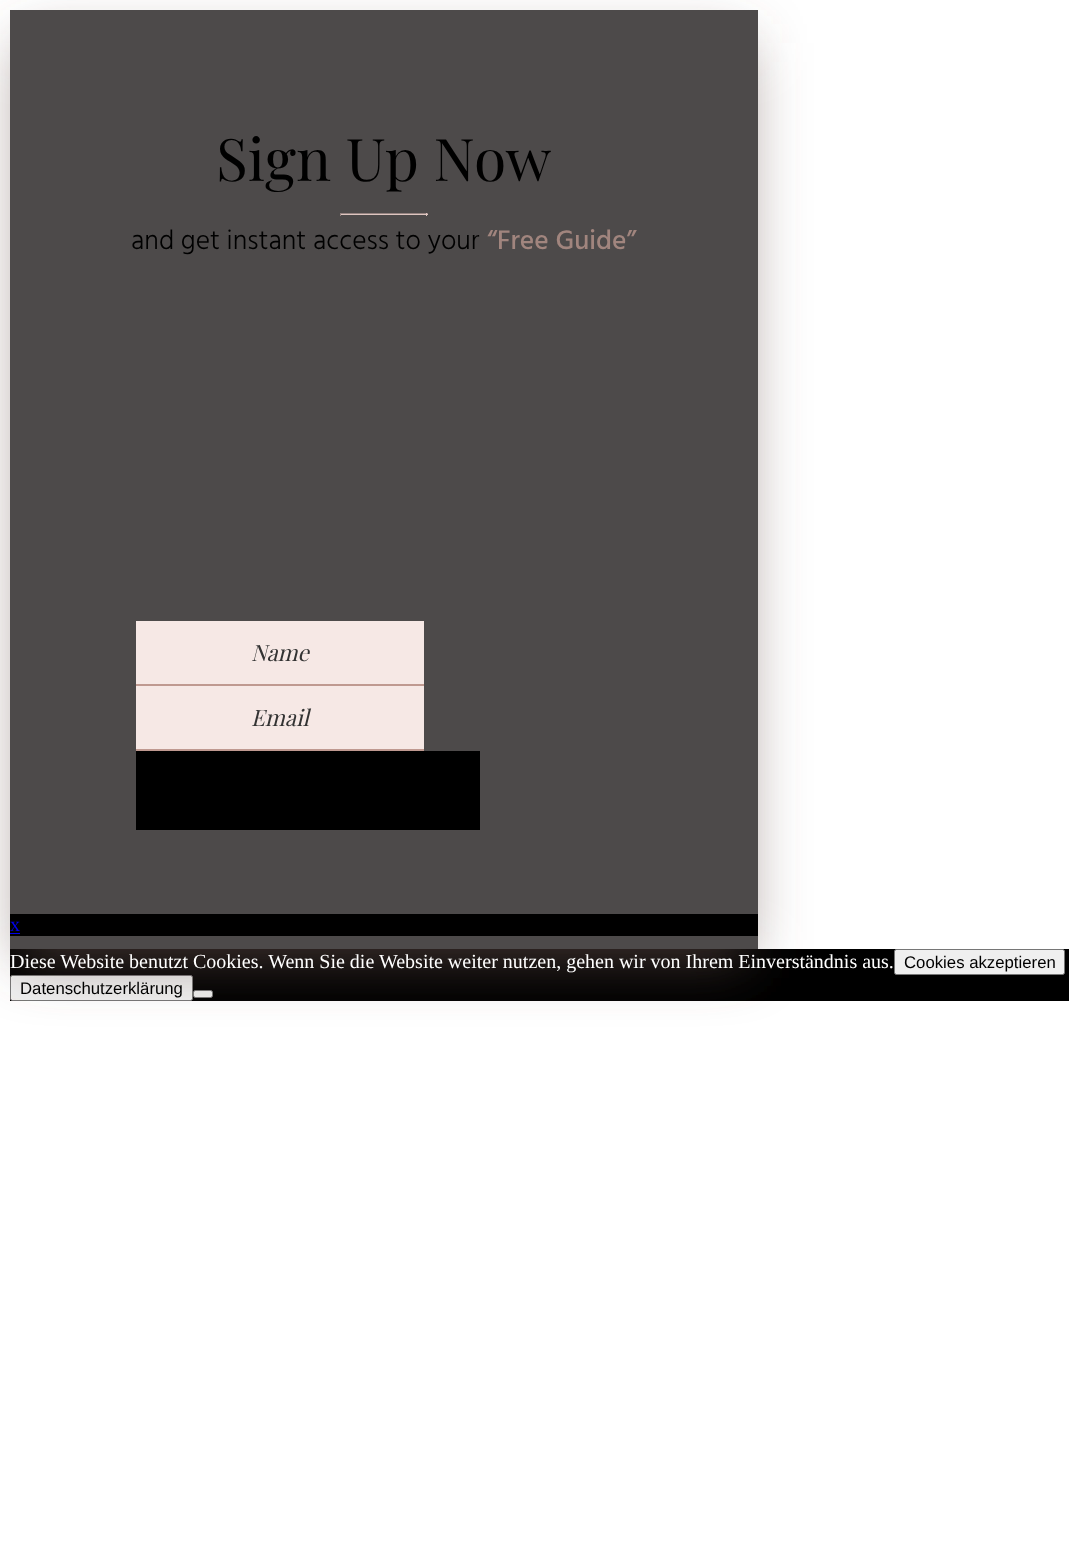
<svg xmlns="http://www.w3.org/2000/svg" width="1078" height="1545" viewBox="0 0 1078 1545">
  <defs>
    <filter id="blur1" x="-50%" y="-200%" width="200%" height="500%"><feGaussianBlur stdDeviation="29.5"/></filter>
  </defs>
  <rect width="100%" height="100%" fill="#ffffff"/>
  <rect x="10" y="949" width="1059" height="52" fill="#000000"/>
  <rect x="10.5" y="975.5" width="182" height="25" rx="2" fill="#efefef" stroke="#767676"/>
  <rect x="193.5" y="990.5" width="19" height="7" rx="2" fill="#efefef" stroke="#767676"/>
  <rect x="21" y="43" width="725" height="916" fill="#6d5650" fill-opacity="0.61" filter="url(#blur1)"/>
  <rect x="10" y="10" width="748" height="939" fill="#4d4a4a"/>
  <text x="216" y="181" font-family="Playfair Display" font-size="58.75" fill="#000000">Sign Up Now</text>
  <rect x="340" y="213" width="88" height="1" fill="#948380"/>
  <rect x="426" y="213" width="1" height="3" fill="#dec5c0"/>
  <rect x="340" y="214" width="88" height="1" fill="#dec5c0"/>
  <rect x="340" y="213" width="1" height="3" fill="#948380"/>
  <text x="131" y="249" font-family="Hind" font-size="27.5" font-weight="300" fill="#000000">and get instant access to your</text>
  <text x="487" y="249" font-family="Hind" font-size="27.5" font-weight="500" fill="#a1857e">“Free Guide”</text>
  <rect x="136" y="621" width="288" height="63" fill="#f6e8e5"/>
  <rect x="136" y="684" width="288" height="2" fill="#bf9990"/>
  <text x="251" y="661" font-family="Playfair Display" font-size="22.5" font-style="italic" fill="#333333">Name</text>
  <rect x="136" y="686" width="288" height="63" fill="#f6e8e5"/>
  <rect x="136" y="749" width="288" height="2" fill="#bf9990"/>
  <text x="251" y="726" font-family="Playfair Display" font-size="22.5" font-style="italic" fill="#333333">Email</text>
  <rect x="136" y="751" width="344" height="79" fill="#000000"/>
  <rect x="10" y="914" width="748" height="22" fill="#000000"/>
  <text x="10" y="931" font-family="Liberation Serif" font-size="20" fill="#0000ee">x</text>
  <rect x="10" y="933" width="10" height="1" fill="#0000ee"/>
  <text x="10" y="968" font-family="Liberation Serif" font-size="20" fill="#ffffff">Diese Website benutzt Cookies. Wenn Sie die Website weiter nutzen, gehen wir von Ihrem Einverständnis aus.</text>
  <rect x="894.5" y="949.5" width="170" height="25" rx="2" fill="#efefef" stroke="#767676"/>
  <text x="904" y="968" font-family="Liberation Sans" font-size="16.75" fill="#000000">Cookies akzeptieren</text>
  <text x="20" y="994" font-family="Liberation Sans" font-size="16.75" fill="#000000">Datenschutzerklärung</text>
</svg>
